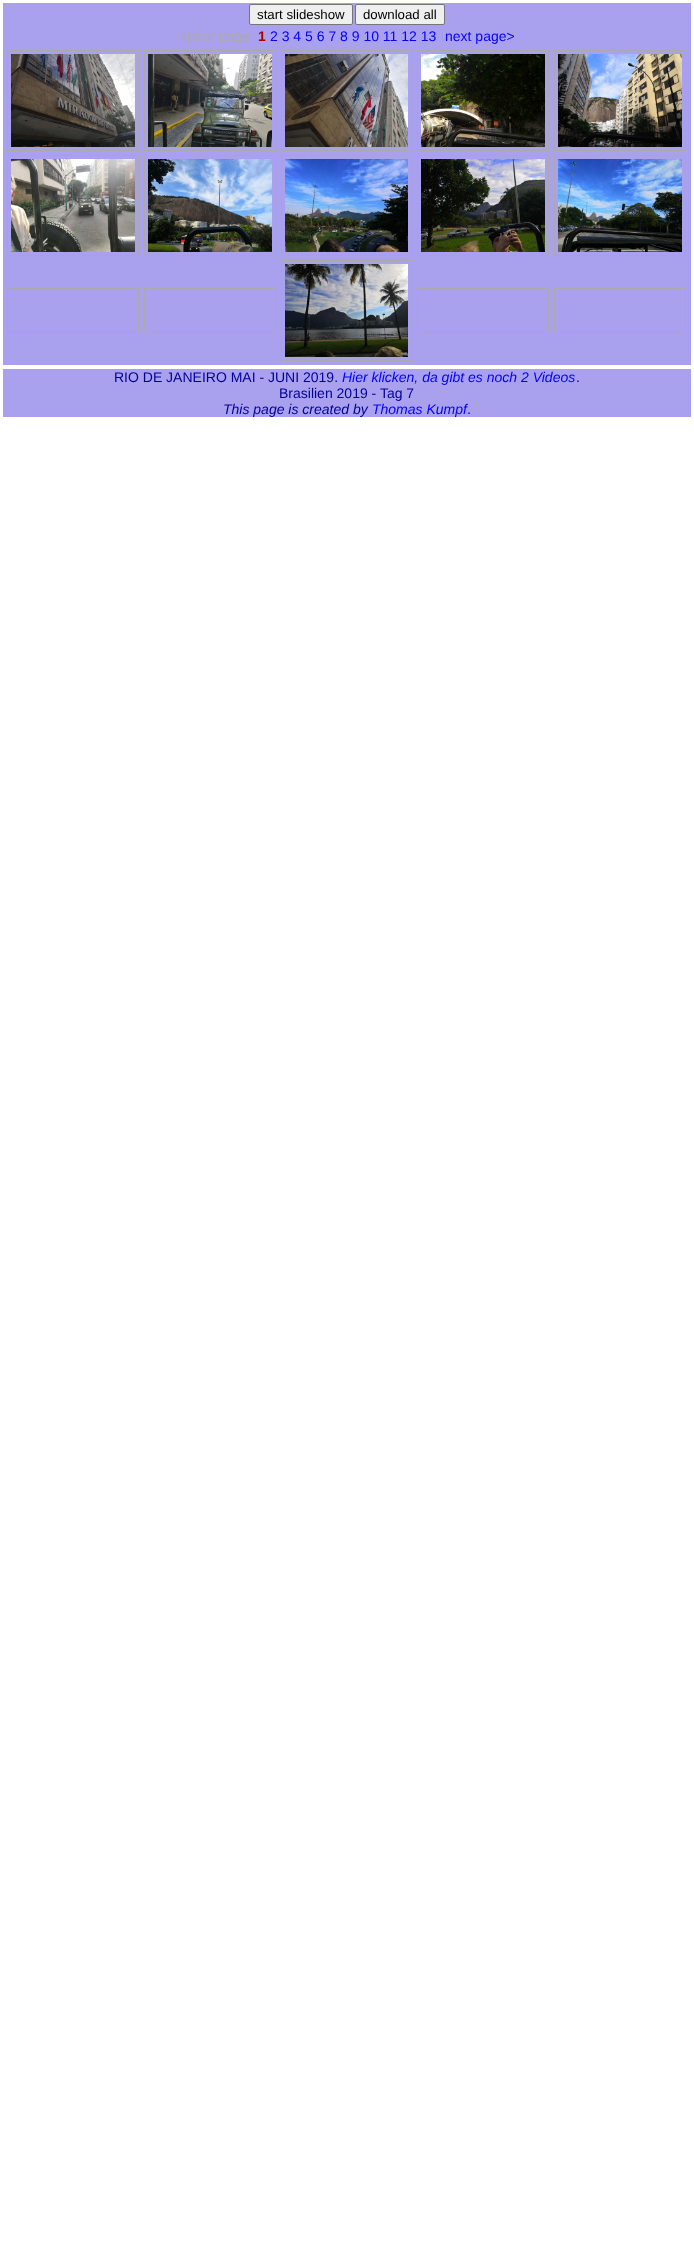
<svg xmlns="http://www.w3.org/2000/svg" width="694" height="2241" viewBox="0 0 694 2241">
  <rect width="100%" height="100%" fill="#ffffff"/>
  <rect x="3" y="3" width="688" height="362" fill="#aaa1ee"/>
  <rect x="249.5" y="4.5" width="103" height="20" rx="1.5" fill="#efefef" stroke="#767676"/>
  <text x="257" y="19" font-family="Liberation Sans" font-size="13.25" fill="#000000">start slideshow</text>
  <rect x="355.5" y="4.5" width="89" height="20" rx="1.5" fill="#efefef" stroke="#767676"/>
  <text x="363" y="19" font-family="Liberation Sans" font-size="13.25" fill="#000000">download all</text>
  <text x="179" y="41" font-family="Liberation Sans" font-size="14" fill="#aaaaaa">&lt;prior page</text>
  <text x="258" y="41" font-family="Liberation Sans" font-size="14" font-weight="bold" fill="#aa0000">1</text>
  <text x="270" y="41" font-family="Liberation Sans" font-size="14" fill="#0000ff">2 3 4 5 6 7 8 9 10 11 12 13</text>
  <text x="445" y="41" font-family="Liberation Sans" font-size="14" fill="#0000ff">next page&gt;</text>
  <rect x="7.5" y="50.5" width="131" height="100" fill="none" stroke="#aaaaaa"/>
  <image x="11" y="54" width="124" height="93" href="img1.png"/>
  <rect x="144.5" y="50.5" width="131" height="100" fill="none" stroke="#aaaaaa"/>
  <image x="148" y="54" width="124" height="93" href="img2.png"/>
  <rect x="281.5" y="50.5" width="130" height="100" fill="none" stroke="#aaaaaa"/>
  <image x="285" y="54" width="123" height="93" href="img3.png"/>
  <rect x="417.5" y="50.5" width="131" height="100" fill="none" stroke="#aaaaaa"/>
  <image x="421" y="54" width="124" height="93" href="img4.png"/>
  <rect x="554.5" y="50.5" width="131" height="100" fill="none" stroke="#aaaaaa"/>
  <image x="558" y="54" width="124" height="93" href="img5.png"/>
  <rect x="7.5" y="155.5" width="131" height="100" fill="none" stroke="#aaaaaa"/>
  <image x="11" y="159" width="124" height="93" href="img6.png"/>
  <rect x="144.5" y="155.5" width="131" height="100" fill="none" stroke="#aaaaaa"/>
  <image x="148" y="159" width="124" height="93" href="img7.png"/>
  <rect x="281.5" y="155.5" width="130" height="100" fill="none" stroke="#aaaaaa"/>
  <image x="285" y="159" width="123" height="93" href="img8.png"/>
  <rect x="417.5" y="155.5" width="131" height="100" fill="none" stroke="#aaaaaa"/>
  <image x="421" y="159" width="124" height="93" href="img9.png"/>
  <rect x="554.5" y="155.5" width="131" height="100" fill="none" stroke="#aaaaaa"/>
  <image x="558" y="159" width="124" height="93" href="img10.png"/>
  <rect x="7.5" y="288.5" width="131" height="43" fill="none" stroke="#aaaaaa"/>
  <rect x="144.5" y="288.5" width="131" height="43" fill="none" stroke="#aaaaaa"/>
  <rect x="281.5" y="260.5" width="130" height="100" fill="none" stroke="#aaaaaa"/>
  <image x="285" y="264" width="123" height="93" href="img11.png"/>
  <rect x="417.5" y="288.5" width="131" height="43" fill="none" stroke="#aaaaaa"/>
  <rect x="554.5" y="288.5" width="131" height="43" fill="none" stroke="#aaaaaa"/>
  <rect x="3" y="369" width="688" height="48" fill="#aaa1ee"/>
  <text x="114" y="382" font-family="Liberation Sans" font-size="14" fill="#000095">RIO DE JANEIRO MAI - JUNI 2019.</text>
  <text x="342" y="382" font-family="Liberation Sans" font-size="14" font-style="italic" fill="#0000ff">Hier klicken, da gibt es noch 2 Videos</text>
  <text x="576" y="382" font-family="Liberation Sans" font-size="14" fill="#000095">.</text>
  <text x="279" y="398" font-family="Liberation Sans" font-size="14" fill="#000095">Brasilien 2019 - Tag 7</text>
  <text x="223" y="414" font-family="Liberation Sans" font-size="14" font-style="italic" fill="#000095">This page is created by</text>
  <text x="372" y="414" font-family="Liberation Sans" font-size="14" font-style="italic" fill="#0000ff">Thomas Kumpf</text>
  <text x="467" y="414" font-family="Liberation Sans" font-size="14" fill="#000095">.</text>
</svg>
